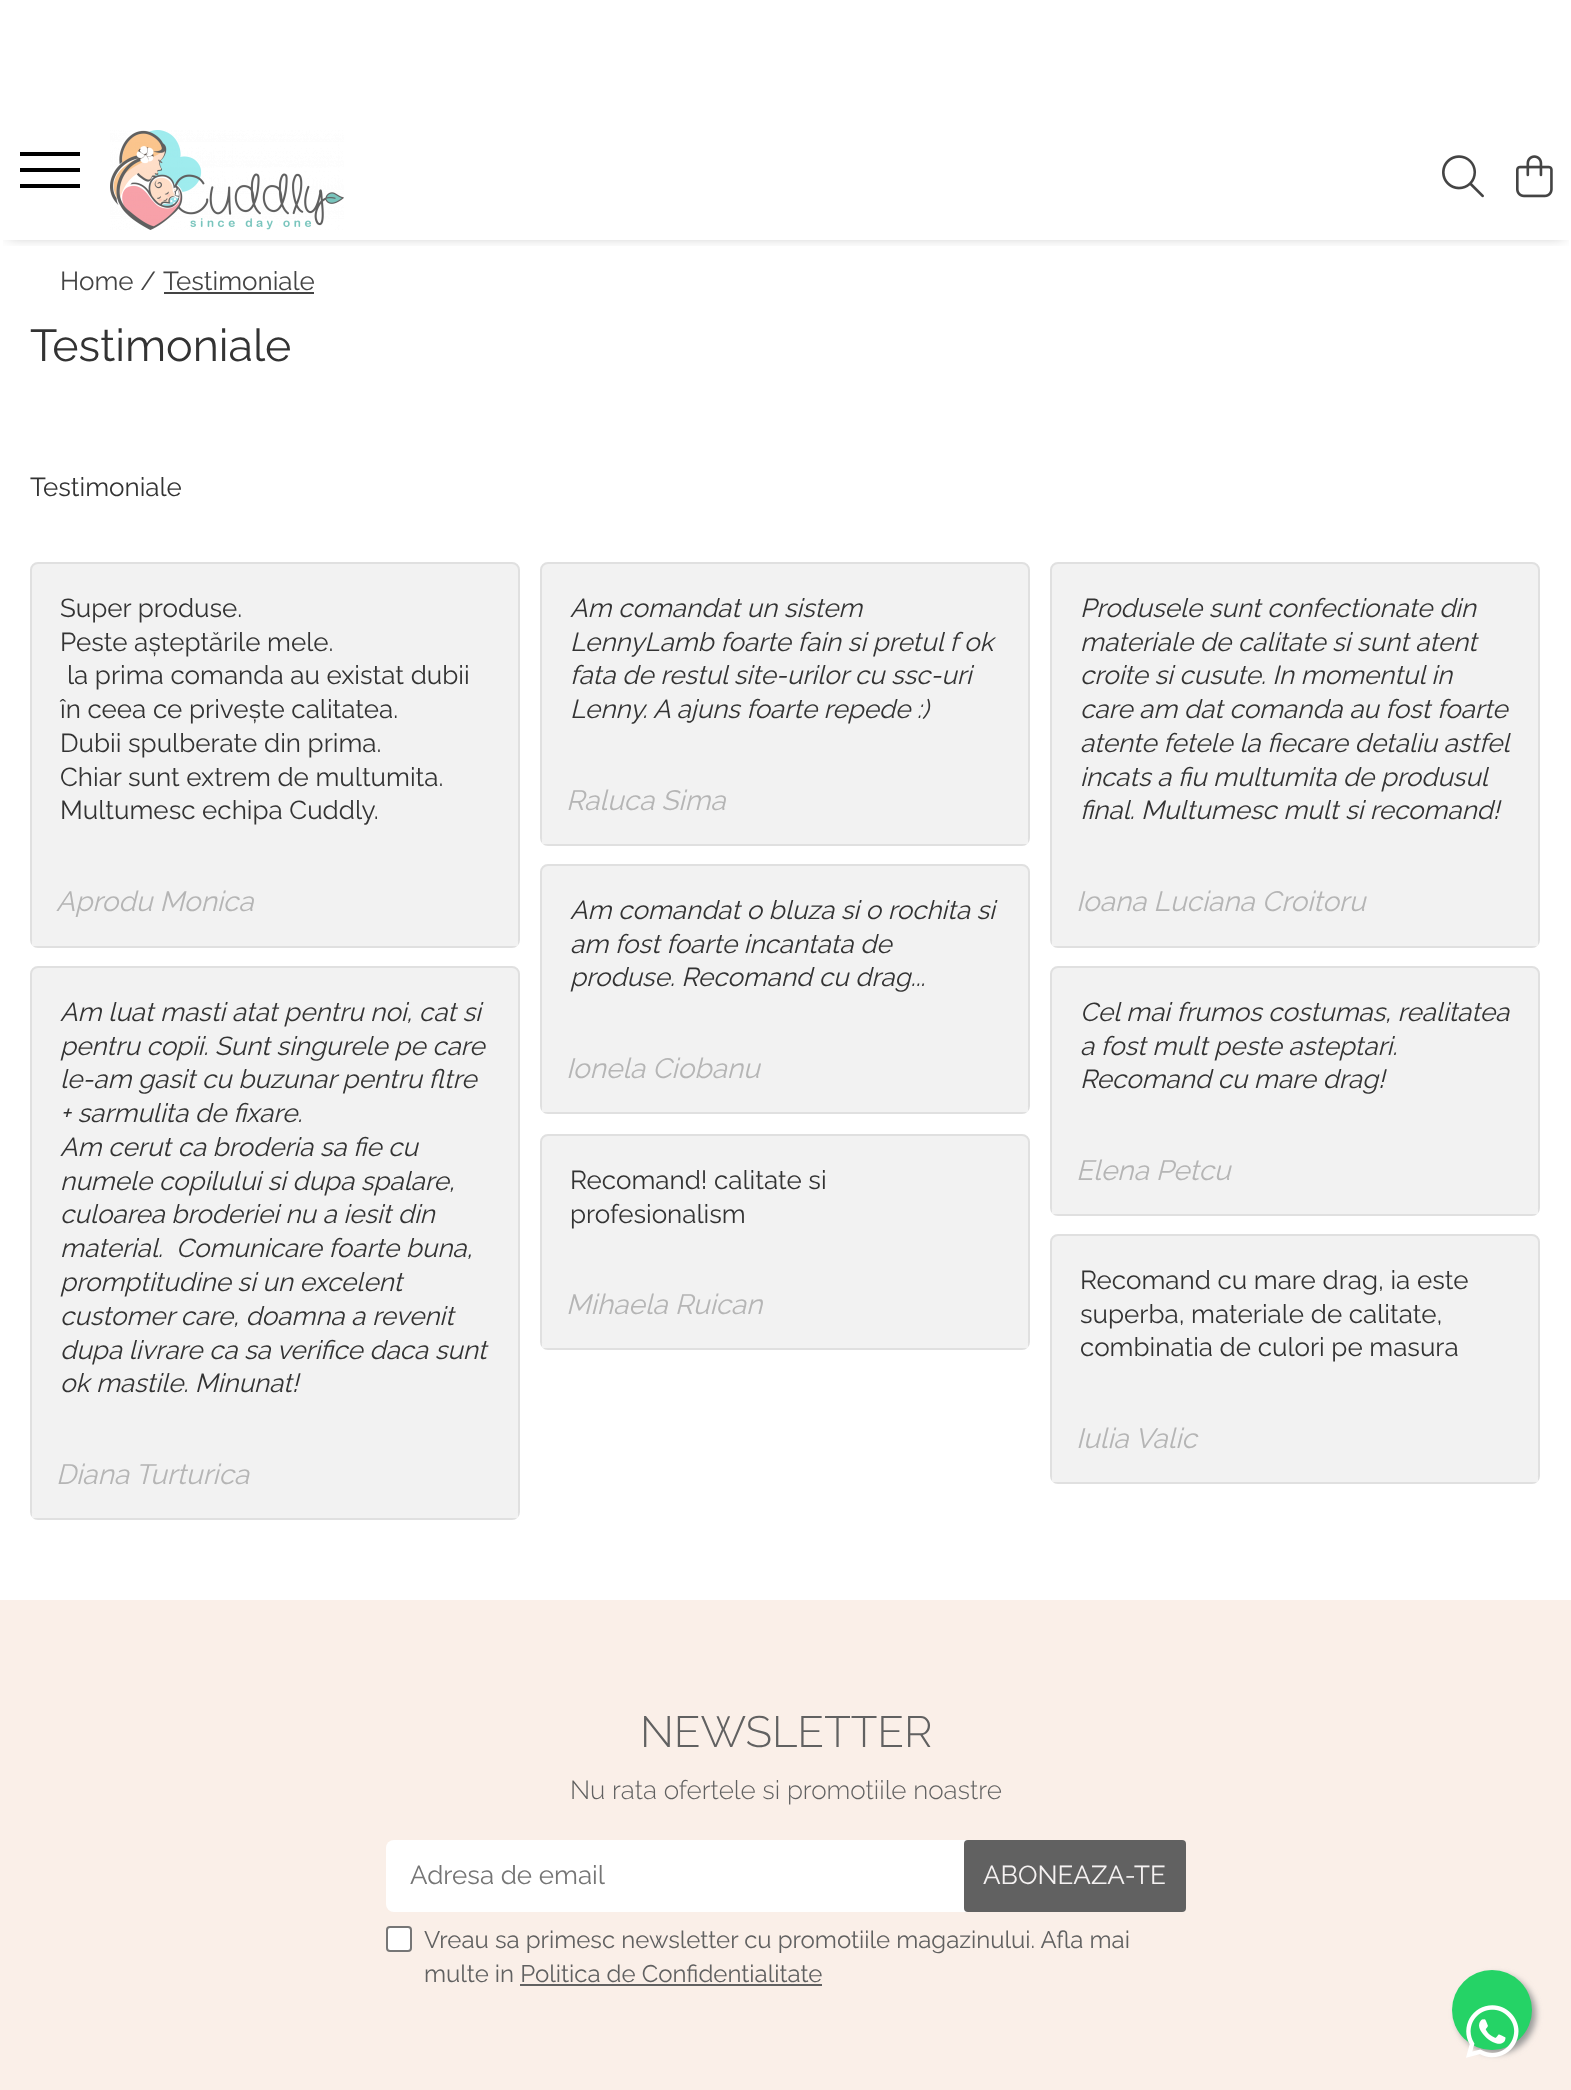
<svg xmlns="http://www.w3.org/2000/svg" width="1571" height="2090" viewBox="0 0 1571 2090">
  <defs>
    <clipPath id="clip1"><rect x="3" y="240" width="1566" height="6"/></clipPath>
    <filter id="blur1" x="-50%" y="-200%" width="200%" height="500%"><feGaussianBlur stdDeviation="7"/></filter>
    <filter id="blur2" x="-50%" y="-200%" width="200%" height="500%"><feGaussianBlur stdDeviation="3"/></filter>
  </defs>
  <rect width="100%" height="100%" fill="#ffffff"/>
  <g clip-path="url(#clip1)">
    <rect x="8" y="12" width="1556" height="224" fill="#000000" fill-opacity="0.3" filter="url(#blur1)"/>
  </g>
  <rect x="20" y="168" width="60" height="4" fill="#000000"/>
  <rect x="20" y="152" width="60" height="4" fill="#000000"/>
  <rect x="20" y="184" width="60" height="4" fill="#000000"/>
  <image x="110" y="130" width="234" height="100" href="img1.png"/>
  <image x="1442" y="155" width="42" height="43" href="img2.png"/>
  <image x="1516" y="155" width="37" height="43" href="img3.png"/>
  <text x="60" y="290" font-family="Raleway" font-size="26" fill="#444444">Home /</text>
  <text x="163" y="290" font-family="Raleway" font-size="26" fill="#444444">Testimoniale</text>
  <rect x="164" y="292" width="150" height="2" fill="#444444"/>
  <text x="30" y="361" font-family="Raleway" font-size="44.75" fill="#333333">Testimoniale</text>
  <text x="30" y="496" font-family="Raleway" font-size="26" fill="#333333">Testimoniale</text>
  <rect x="31" y="563" width="488" height="384" rx="7" fill="#f2f2f2" stroke="#e0e0e0" stroke-width="2"/>
  <text x="60" y="617" font-family="Raleway" font-size="26" fill="#333333">Super produse.</text>
  <text x="60" y="651" font-family="Raleway" font-size="26" fill="#333333">Peste așteptările mele.</text>
  <text x="67" y="684" font-family="Raleway" font-size="26" fill="#333333">la prima comanda au existat dubii</text>
  <text x="60" y="718" font-family="Raleway" font-size="26" fill="#333333">în ceea ce privește calitatea.</text>
  <text x="60" y="752" font-family="Raleway" font-size="26" fill="#333333">Dubii spulberate din prima.</text>
  <text x="60" y="786" font-family="Raleway" font-size="26" fill="#333333">Chiar sunt extrem de multumita.</text>
  <text x="60" y="819" font-family="Raleway" font-size="26" fill="#333333">Multumesc echipa Cuddly.</text>
  <rect x="32" y="941" width="486" height="5" fill="#f2f2f2"/>
  <text x="56" y="911" font-family="Raleway" font-size="28" font-style="italic" fill="#b5b5b5">Aprodu Monica</text>
  <rect x="541" y="563" width="488" height="282" rx="7" fill="#f2f2f2" stroke="#e0e0e0" stroke-width="2"/>
  <text x="570" y="617" font-family="Raleway" font-size="26" font-style="italic" fill="#333333">Am comandat un sistem</text>
  <text x="570" y="651" font-family="Raleway" font-size="26" font-style="italic" fill="#333333">LennyLamb foarte fain si pretul f ok</text>
  <text x="570" y="684" font-family="Raleway" font-size="26" font-style="italic" fill="#333333">fata de restul site-urilor cu ssc-uri</text>
  <text x="570" y="718" font-family="Raleway" font-size="26" font-style="italic" fill="#333333">Lenny. A ajuns foarte repede :)</text>
  <rect x="542" y="839" width="486" height="5" fill="#f2f2f2"/>
  <text x="566" y="810" font-family="Raleway" font-size="28" font-style="italic" fill="#b5b5b5">Raluca Sima</text>
  <rect x="1051" y="563" width="488" height="384" rx="7" fill="#f2f2f2" stroke="#e0e0e0" stroke-width="2"/>
  <text x="1080" y="617" font-family="Raleway" font-size="26" font-style="italic" fill="#333333">Produsele sunt confectionate din</text>
  <text x="1080" y="651" font-family="Raleway" font-size="26" font-style="italic" fill="#333333">materiale de calitate si sunt atent</text>
  <text x="1080" y="684" font-family="Raleway" font-size="26" font-style="italic" fill="#333333">croite si cusute. In momentul in</text>
  <text x="1080" y="718" font-family="Raleway" font-size="26" font-style="italic" fill="#333333">care am dat comanda au fost foarte</text>
  <text x="1080" y="752" font-family="Raleway" font-size="26" font-style="italic" fill="#333333">atente fetele la fiecare detaliu astfel</text>
  <text x="1080" y="786" font-family="Raleway" font-size="26" font-style="italic" fill="#333333">incats a fiu multumita de produsul</text>
  <text x="1080" y="819" font-family="Raleway" font-size="26" font-style="italic" fill="#333333">final. Multumesc mult si recomand!</text>
  <rect x="1052" y="941" width="486" height="5" fill="#f2f2f2"/>
  <text x="1076" y="911" font-family="Raleway" font-size="28" font-style="italic" fill="#b5b5b5">Ioana Luciana Croitoru</text>
  <rect x="31" y="967" width="488" height="552" rx="7" fill="#f2f2f2" stroke="#e0e0e0" stroke-width="2"/>
  <text x="60" y="1021" font-family="Raleway" font-size="26" font-style="italic" fill="#333333">Am luat masti atat pentru noi, cat si</text>
  <text x="60" y="1055" font-family="Raleway" font-size="26" font-style="italic" fill="#333333">pentru copii. Sunt singurele pe care</text>
  <text x="60" y="1088" font-family="Raleway" font-size="26" font-style="italic" fill="#333333">le-am gasit cu buzunar pentru fltre</text>
  <text x="60" y="1122" font-family="Raleway" font-size="26" font-style="italic" fill="#333333">+ sarmulita de fixare.</text>
  <text x="60" y="1156" font-family="Raleway" font-size="26" font-style="italic" fill="#333333">Am cerut ca broderia sa fie cu</text>
  <text x="60" y="1190" font-family="Raleway" font-size="26" font-style="italic" fill="#333333">numele copilului si dupa spalare,</text>
  <text x="60" y="1223" font-family="Raleway" font-size="26" font-style="italic" fill="#333333">culoarea broderiei nu a iesit din</text>
  <text x="60" y="1257" font-family="Raleway" font-size="26" font-style="italic" fill="#333333" xml:space="preserve">material.  Comunicare foarte buna,</text>
  <text x="60" y="1291" font-family="Raleway" font-size="26" font-style="italic" fill="#333333">promptitudine si un excelent</text>
  <text x="60" y="1325" font-family="Raleway" font-size="26" font-style="italic" fill="#333333">customer care, doamna a revenit</text>
  <text x="60" y="1359" font-family="Raleway" font-size="26" font-style="italic" fill="#333333">dupa livrare ca sa verifice daca sunt</text>
  <text x="60" y="1392" font-family="Raleway" font-size="26" font-style="italic" fill="#333333">ok mastile. Minunat!</text>
  <rect x="32" y="1513" width="486" height="5" fill="#f2f2f2"/>
  <text x="56" y="1484" font-family="Raleway" font-size="28" font-style="italic" fill="#b5b5b5">Diana Turturica</text>
  <rect x="541" y="865" width="488" height="248" rx="7" fill="#f2f2f2" stroke="#e0e0e0" stroke-width="2"/>
  <text x="570" y="919" font-family="Raleway" font-size="26" font-style="italic" fill="#333333">Am comandat o bluza si o rochita si</text>
  <text x="570" y="953" font-family="Raleway" font-size="26" font-style="italic" fill="#333333">am fost foarte incantata de</text>
  <text x="570" y="986" font-family="Raleway" font-size="26" font-style="italic" fill="#333333">produse. Recomand cu drag...</text>
  <rect x="542" y="1107" width="486" height="5" fill="#f2f2f2"/>
  <text x="566" y="1078" font-family="Raleway" font-size="28" font-style="italic" fill="#b5b5b5">Ionela Ciobanu</text>
  <rect x="1051" y="967" width="488" height="248" rx="7" fill="#f2f2f2" stroke="#e0e0e0" stroke-width="2"/>
  <text x="1080" y="1021" font-family="Raleway" font-size="26" font-style="italic" fill="#333333">Cel mai frumos costumas, realitatea</text>
  <text x="1080" y="1055" font-family="Raleway" font-size="26" font-style="italic" fill="#333333">a fost mult peste asteptari.</text>
  <text x="1080" y="1088" font-family="Raleway" font-size="26" font-style="italic" fill="#333333">Recomand cu mare drag!</text>
  <rect x="1052" y="1209" width="486" height="5" fill="#f2f2f2"/>
  <text x="1076" y="1180" font-family="Raleway" font-size="28" font-style="italic" fill="#b5b5b5">Elena Petcu</text>
  <rect x="541" y="1135" width="488" height="214" rx="7" fill="#f2f2f2" stroke="#e0e0e0" stroke-width="2"/>
  <text x="570" y="1189" font-family="Raleway" font-size="26" fill="#333333">Recomand! calitate si</text>
  <text x="570" y="1223" font-family="Raleway" font-size="26" fill="#333333">profesionalism</text>
  <rect x="542" y="1343" width="486" height="5" fill="#f2f2f2"/>
  <text x="566" y="1314" font-family="Raleway" font-size="28" font-style="italic" fill="#b5b5b5">Mihaela Ruican</text>
  <rect x="1051" y="1235" width="488" height="248" rx="7" fill="#f2f2f2" stroke="#e0e0e0" stroke-width="2"/>
  <text x="1080" y="1289" font-family="Raleway" font-size="26" fill="#333333">Recomand cu mare drag, ia este</text>
  <text x="1080" y="1323" font-family="Raleway" font-size="26" fill="#333333">superba, materiale de calitate,</text>
  <text x="1080" y="1356" font-family="Raleway" font-size="26" fill="#333333">combinatia de culori pe masura</text>
  <rect x="1052" y="1477" width="486" height="5" fill="#f2f2f2"/>
  <text x="1076" y="1448" font-family="Raleway" font-size="28" font-style="italic" fill="#b5b5b5">Iulia Valic</text>
  <rect x="0" y="1600" width="1571" height="490" fill="#faefe8"/>
  <text x="640" y="1747" font-family="Raleway" font-size="43.75" font-weight="300" fill="#616161">NEWSLETTER</text>
  <text x="570" y="1799" font-family="Raleway" font-size="26" font-weight="300" fill="#616161">Nu rata ofertele si promotiile noastre</text>
  <rect x="386" y="1840" width="800" height="72" rx="8" fill="#ffffff"/>
  <text x="410" y="1884" font-family="Raleway" font-size="26" fill="#757575">Adresa de email</text>
  <rect x="964" y="1840" width="222" height="72" rx="4" fill="#616161"/>
  <text x="983" y="1884" font-family="Raleway" font-size="26" fill="#f5f2f2">ABONEAZA-TE</text>
  <rect x="387" y="1927" width="24" height="24" rx="3" fill="#ffffff" stroke="#767676" stroke-width="2"/>
  <text x="424" y="1948" font-family="Raleway" font-size="24" fill="#616161">Vreau sa primesc newsletter cu promotiile magazinului. Afla mai</text>
  <text x="424" y="1982" font-family="Raleway" font-size="24" fill="#616161">multe in Politica de Confidentialitate</text>
  <rect x="520" y="1984" width="302" height="2" fill="#616161"/>
  <rect x="1456" y="1974" width="80" height="80" rx="40" fill="#999999" filter="url(#blur2)"/>
  <circle cx="1492" cy="2010" r="40" fill="#25d366"/>
  <image x="1466" y="2005" width="53" height="53" href="img4.png"/>
</svg>
